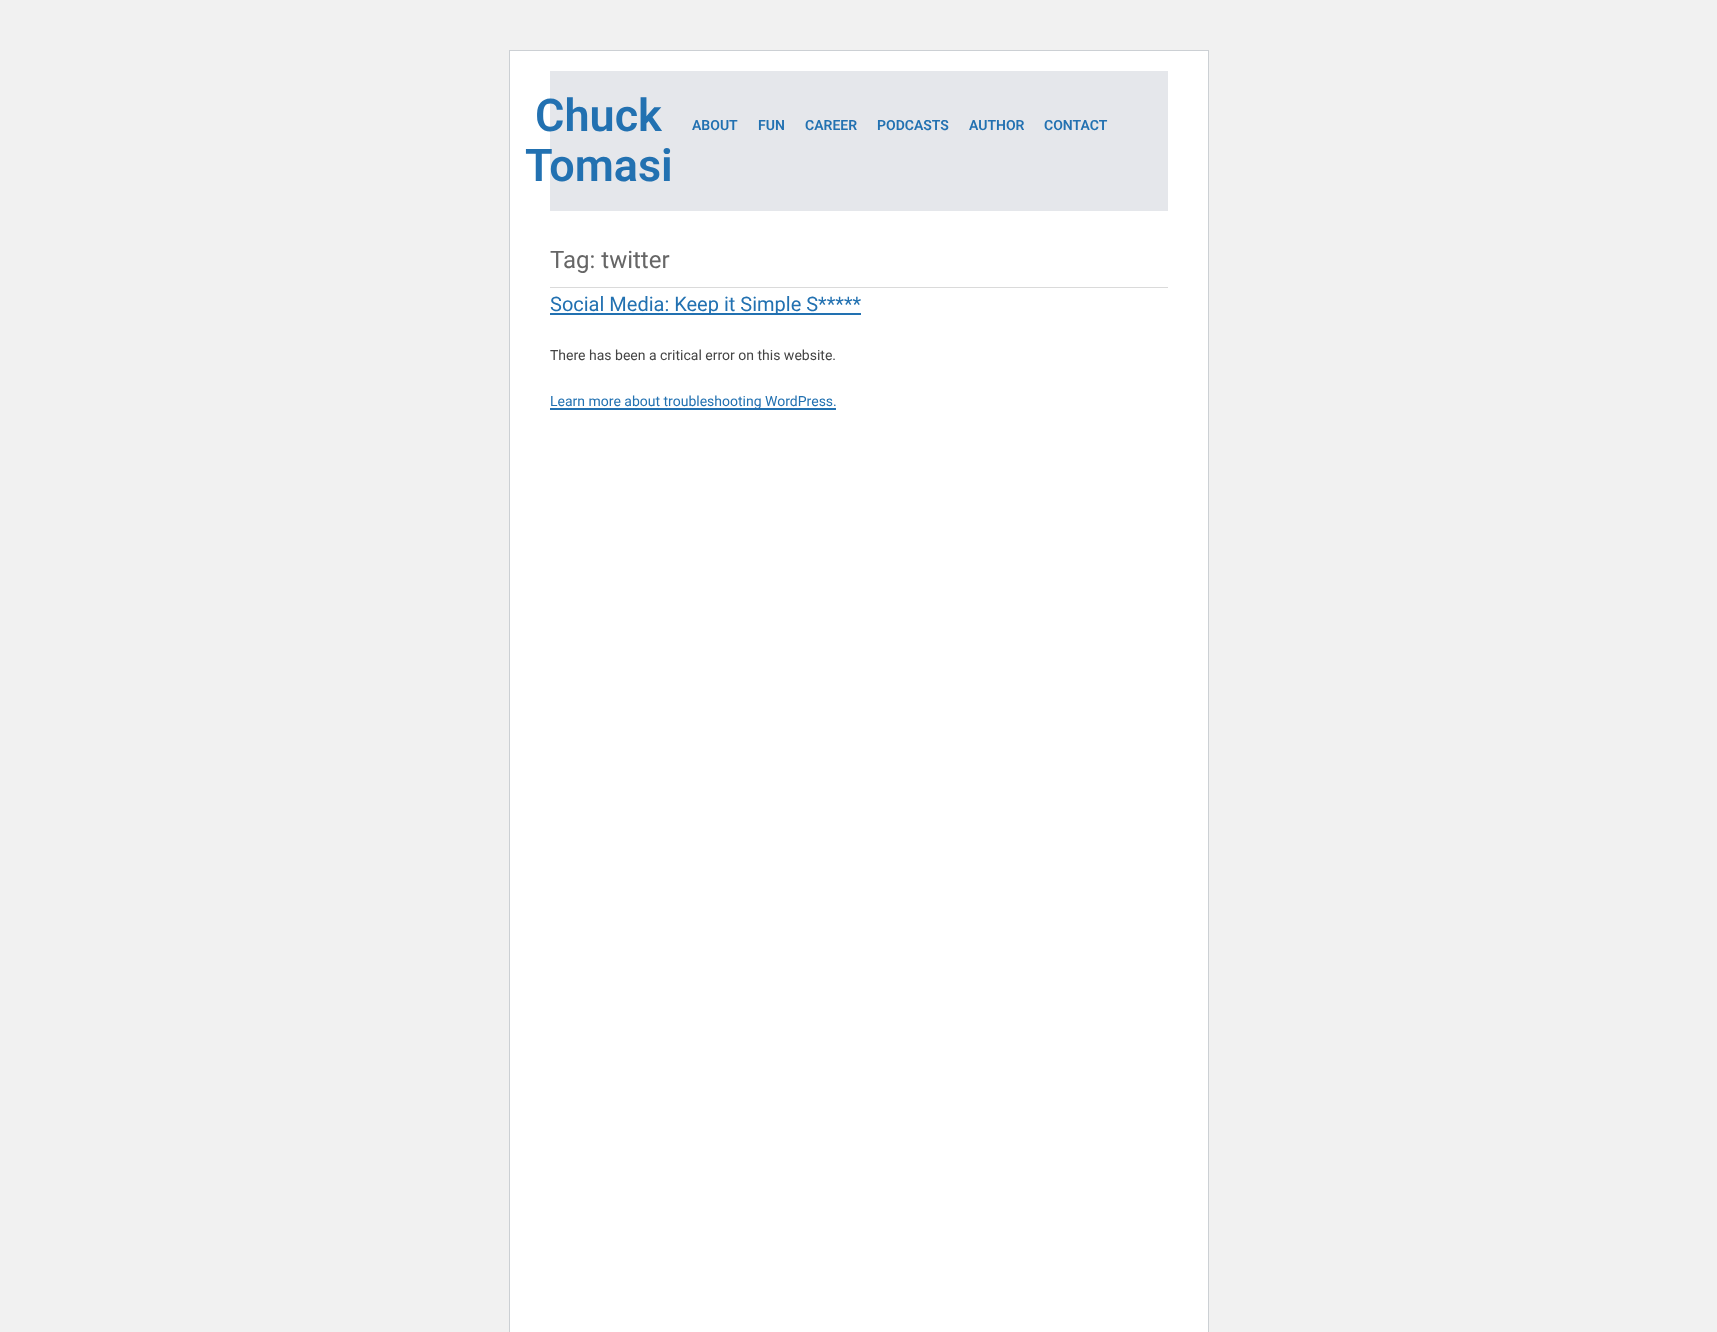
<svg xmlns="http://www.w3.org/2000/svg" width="1717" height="1332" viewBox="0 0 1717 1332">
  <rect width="100%" height="100%" fill="#f1f1f1"/>
  <rect x="509.5" y="50.5" width="699" height="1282" fill="#ffffff" stroke="#ccd0d4"/>
  <rect x="550" y="71" width="618" height="140" fill="#e5e7eb"/>
  <text x="535" y="131" font-family="Roboto" font-size="45" font-weight="600" fill="#2271b1">Chuck</text>
  <text x="525" y="181" font-family="Roboto" font-size="45" font-weight="600" fill="#2271b1">Tomasi</text>
  <text x="692" y="130" font-family="Roboto" font-size="14" font-weight="600" fill="#2271b1">ABOUT</text>
  <text x="758" y="130" font-family="Roboto" font-size="14" font-weight="600" fill="#2271b1">FUN</text>
  <text x="805" y="130" font-family="Roboto" font-size="14" font-weight="600" fill="#2271b1">CAREER</text>
  <text x="877" y="130" font-family="Roboto" font-size="14" font-weight="600" fill="#2271b1">PODCASTS</text>
  <text x="969" y="130" font-family="Roboto" font-size="14" font-weight="600" fill="#2271b1">AUTHOR</text>
  <text x="1044" y="130" font-family="Roboto" font-size="14" font-weight="600" fill="#2271b1">CONTACT</text>
  <rect x="550" y="287" width="618" height="1" fill="#dadada"/>
  <text x="550" y="268" font-family="Roboto" font-size="24" fill="#666666">Tag: twitter</text>
  <rect x="550" y="313" width="311" height="2" fill="#2271b1"/>
  <text x="550" y="311" font-family="Roboto" font-size="20" fill="#2271b1">Social Media: Keep it Simple S*****</text>
  <text x="550" y="360" font-family="Roboto" font-size="14" fill="#444444">There has been a critical error on this website.</text>
  <rect x="550" y="408" width="286" height="2" fill="#2271b1"/>
  <text x="550" y="406" font-family="Roboto" font-size="14" fill="#2271b1">Learn more about troubleshooting WordPress.</text>
</svg>
